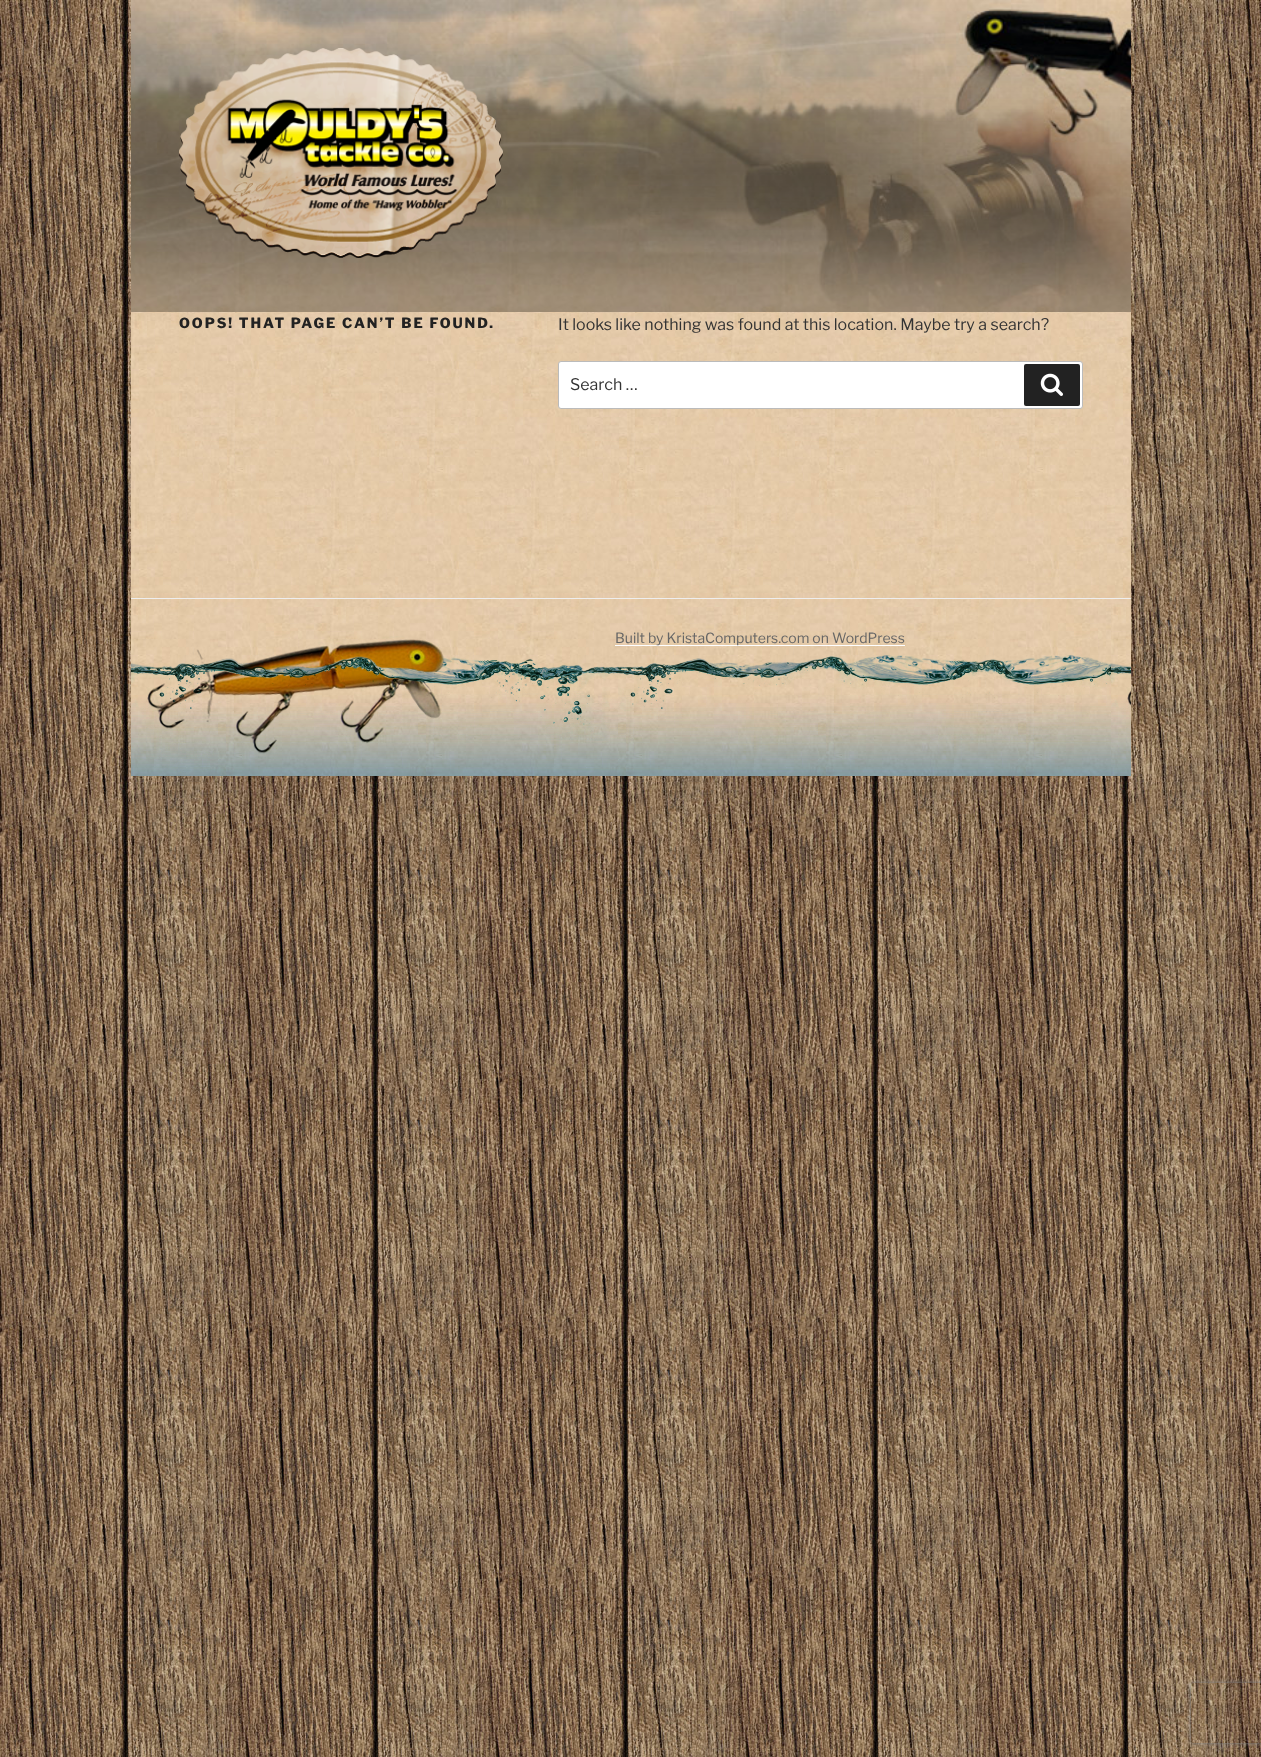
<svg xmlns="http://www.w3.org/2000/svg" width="1261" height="1757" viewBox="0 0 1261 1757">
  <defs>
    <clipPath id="clip1"><path d="M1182 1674H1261V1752H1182ZM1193 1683H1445C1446 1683 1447 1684 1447 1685V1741C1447 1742 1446 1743 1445 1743H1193C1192 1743 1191 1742 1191 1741V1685C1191 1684 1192 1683 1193 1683Z" clip-rule="evenodd"/></clipPath>
    <filter id="blur1" x="-50%" y="-200%" width="200%" height="500%"><feGaussianBlur stdDeviation="2.5"/></filter>
  </defs>
  <rect width="100%" height="100%" fill="#ffffff"/>
  <image x="0" y="0" width="1261" height="1757" href="img1.png"/>
  <image x="131" y="312" width="1000" height="1" href="img2.png"/>
  <image x="131" y="0" width="1000" height="312" href="img3.png"/>
  <image x="179" y="48" width="324" height="210" href="img4.png"/>
  <image x="131" y="313" width="1000" height="285" href="img5.png"/>
  <text x="179" y="328" font-family="Libre Franklin" font-size="14" font-weight="100" letter-spacing="1.95" fill="#222222">OOPS! THAT PAGE CAN’T BE FOUND.</text>
  <text x="558" y="330" font-family="'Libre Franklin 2'" font-size="16" font-weight="100" fill="#333333">It looks like nothing was found at this location. Maybe try a search?</text>
  <rect x="558.5" y="361.5" width="524" height="47" rx="2.5" fill="#ffffff" stroke="#bbbbbb"/>
  <text x="570" y="390" font-family="'Libre Franklin 2'" font-size="16" font-weight="100" fill="#333333">Search …</text>
  <rect x="1024" y="364" width="56" height="42" rx="2" fill="#222222"/>
  <image x="1040" y="373" width="23" height="23" href="img6.png"/>
  <image x="131" y="599" width="1000" height="9" href="img7.png"/>
  <rect x="131" y="598" width="1000" height="1" fill="#eeeeee"/>
  <image x="131" y="604" width="1000" height="172" href="img8.png"/>
  <rect x="615" y="645" width="290" height="1" fill="#ffffff"/>
  <text x="615" y="643" font-family="'Libre Franklin 2'" font-size="14" font-weight="100" fill="#666666">Built by KristaComputers.com on WordPress</text>
  <g clip-path="url(#clip1)">
    <rect x="1191" y="1683" width="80" height="60" rx="2" fill="#808080" filter="url(#blur1)"/>
  </g>
</svg>
